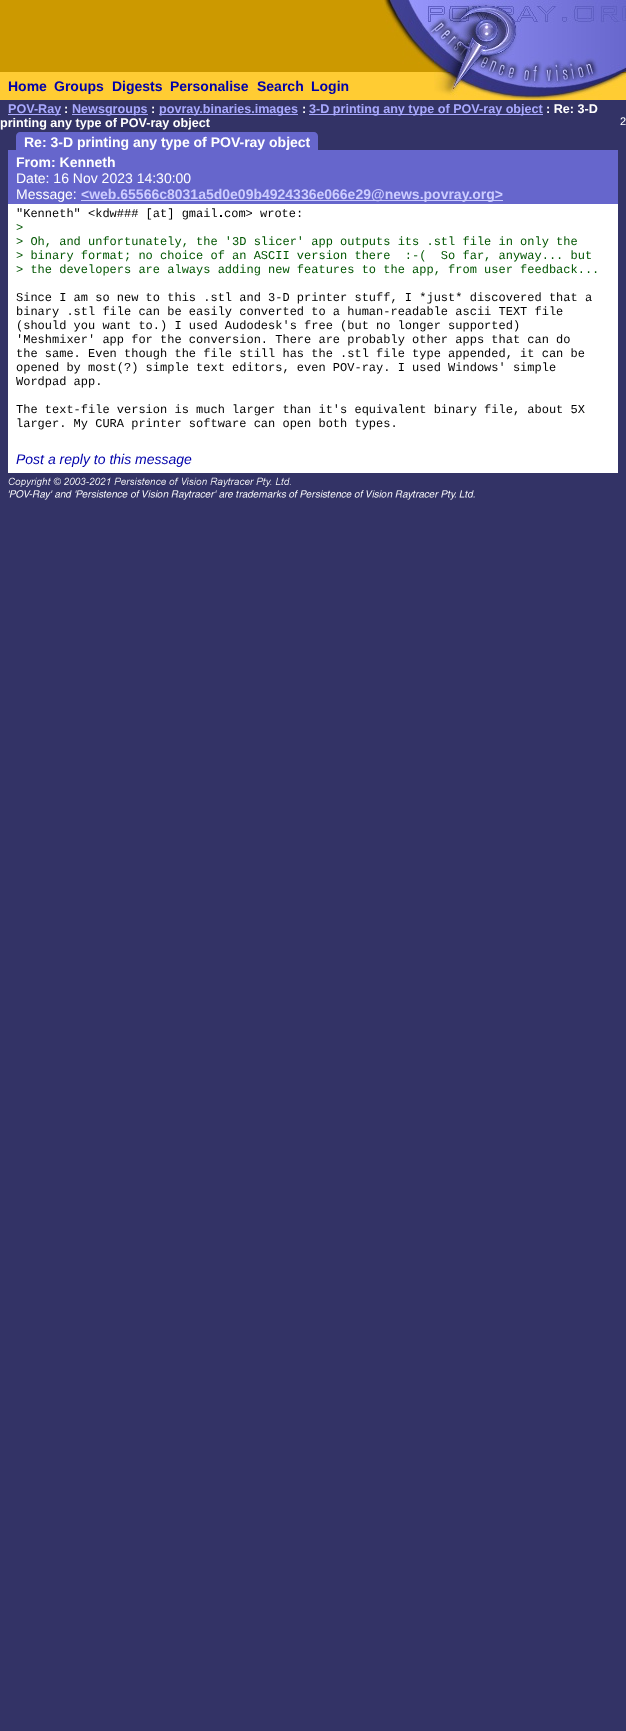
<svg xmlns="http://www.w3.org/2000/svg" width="626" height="1731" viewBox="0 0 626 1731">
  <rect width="100%" height="100%" fill="#333366"/>
  <rect x="0" y="0" width="434" height="72" fill="#cc9900"/>
  <image x="381" y="0" width="53" height="68" href="img1.png"/>
  <image x="434" y="0" width="40" height="72" href="img2.png"/>
  <image x="474" y="0" width="152" height="72" href="img3.png"/>
  <rect x="0" y="72" width="434" height="28" fill="#ffcc33"/>
  <text x="8" y="91" font-family="Liberation Sans" font-size="14" font-weight="bold" fill="#0000aa">Home</text>
  <text x="54" y="91" font-family="Liberation Sans" font-size="14" font-weight="bold" fill="#0000aa">Groups</text>
  <text x="112" y="91" font-family="Liberation Sans" font-size="14" font-weight="bold" fill="#0000aa">Digests</text>
  <text x="170" y="91" font-family="Liberation Sans" font-size="14" font-weight="bold" fill="#0000aa">Personalise</text>
  <text x="257" y="91" font-family="Liberation Sans" font-size="14" font-weight="bold" fill="#0000aa">Search</text>
  <text x="311" y="91" font-family="Liberation Sans" font-size="14" font-weight="bold" fill="#0000aa">Login</text>
  <rect x="434" y="98" width="40" height="2" fill="#ffcc33"/>
  <image x="434" y="72" width="40" height="26" href="img4.png"/>
  <image x="474" y="72" width="152" height="28" href="img5.png"/>
  <rect x="8" y="114" width="53" height="1" fill="#aaaaff"/>
  <text x="8" y="113" font-family="Liberation Sans" font-size="12.6" font-weight="bold" fill="#aaaaff">POV-Ray</text>
  <text x="64" y="113" font-family="Liberation Sans" font-size="12.6" font-weight="bold" fill="#ffffff">:</text>
  <rect x="72" y="114" width="76" height="1" fill="#aaaaff"/>
  <text x="72" y="113" font-family="Liberation Sans" font-size="12.6" font-weight="bold" fill="#aaaaff">Newsgroups</text>
  <text x="151" y="113" font-family="Liberation Sans" font-size="12.6" font-weight="bold" fill="#ffffff">:</text>
  <rect x="159" y="114" width="139" height="1" fill="#aaaaff"/>
  <text x="159" y="113" font-family="Liberation Sans" font-size="12.6" font-weight="bold" fill="#aaaaff">povray.binaries.images</text>
  <text x="302" y="113" font-family="Liberation Sans" font-size="12.6" font-weight="bold" fill="#ffffff">:</text>
  <rect x="309" y="114" width="234" height="1" fill="#aaaaff"/>
  <text x="309" y="113" font-family="Liberation Sans" font-size="12.6" font-weight="bold" fill="#aaaaff">3-D printing any type of POV-ray object</text>
  <text x="546" y="113" font-family="Liberation Sans" font-size="12.6" font-weight="bold" fill="#ffffff">: Re: 3-D</text>
  <text x="0" y="127" font-family="Liberation Sans" font-size="12.6" font-weight="bold" fill="#ffffff">printing any type of POV-ray object</text>
  <text x="620" y="125" font-family="Liberation Sans" font-size="11" fill="#ffffff">2</text>
  <path d="M20 132H314C316 132 318 134 318 136V150H16V136C16 134 18 132 20 132Z" fill="#6666cc"/>
  <text x="24" y="147" font-family="Liberation Sans" font-size="14" font-weight="bold" fill="#ffffff">Re: 3-D printing any type of POV-ray object</text>
  <rect x="8" y="150" width="610" height="4" fill="#6666cc"/>
  <rect x="8" y="154" width="610" height="50" fill="#6666cc"/>
  <text x="16" y="167" font-family="Liberation Sans" font-size="14" font-weight="bold" fill="#ffffff">From: Kenneth</text>
  <text x="16" y="183" font-family="Liberation Sans" font-size="14" fill="#ffffff">Date: 16 Nov 2023 14:30:00</text>
  <text x="16" y="199" font-family="Liberation Sans" font-size="14" fill="#ffffff">Message:</text>
  <rect x="81" y="200" width="422" height="1" fill="#ccccff"/>
  <text x="81" y="199" font-family="Liberation Sans" font-size="14" font-weight="bold" fill="#ccccff">&lt;web.65566c8031a5d0e09b4924336e066e29@news.povray.org&gt;</text>
  <rect x="8" y="204" width="610" height="2" fill="#ffffff"/>
  <rect x="8" y="206" width="610" height="267" fill="#ffffff"/>
  <text x="16" y="217" font-family="Liberation Mono" font-size="12" fill="#000000">"Kenneth" &lt;kdw### [at] gmail</text>
  <rect x="220" y="215" width="2" height="2" fill="#000000"/>
  <text x="224" y="217" font-family="Liberation Mono" font-size="12" fill="#000000">com&gt; wrote:</text>
  <text x="16" y="231" font-family="Liberation Mono" font-size="12" fill="#005500">&gt;</text>
  <text x="16" y="245" font-family="Liberation Mono" font-size="12" fill="#005500">&gt; Oh, and unfortunately, the '3D slicer' app outputs its .stl file in only the</text>
  <text x="16" y="259" font-family="Liberation Mono" font-size="12" fill="#005500" xml:space="preserve">&gt; binary format; no choice of an ASCII version there  :-(  So far, anyway... but</text>
  <text x="16" y="273" font-family="Liberation Mono" font-size="12" fill="#005500">&gt; the developers are always adding new features to the app, from user feedback...</text>
  <text x="16" y="301" font-family="Liberation Mono" font-size="12" fill="#000000">Since I am so new to this .stl and 3-D printer stuff, I *just* discovered that a</text>
  <text x="16" y="315" font-family="Liberation Mono" font-size="12" fill="#000000">binary .stl file can be easily converted to a human-readable ascii TEXT file</text>
  <text x="16" y="329" font-family="Liberation Mono" font-size="12" fill="#000000">(should you want to.) I used Audodesk's free (but no longer supported)</text>
  <text x="16" y="343" font-family="Liberation Mono" font-size="12" fill="#000000">'Meshmixer' app for the conversion. There are probably other apps that can do</text>
  <text x="16" y="357" font-family="Liberation Mono" font-size="12" fill="#000000">the same. Even though the file still has the .stl file type appended, it can be</text>
  <text x="16" y="371" font-family="Liberation Mono" font-size="12" fill="#000000">opened by most(?) simple text editors, even POV-ray. I used Windows' simple</text>
  <text x="16" y="385" font-family="Liberation Mono" font-size="12" fill="#000000">Wordpad app.</text>
  <text x="16" y="413" font-family="Liberation Mono" font-size="12" fill="#000000">The text-file version is much larger than it's equivalent binary file, about 5X</text>
  <text x="16" y="427" font-family="Liberation Mono" font-size="12" fill="#000000">larger. My CURA printer software can open both types.</text>
  <text x="16" y="464" font-family="Liberation Sans" font-size="14" font-style="italic" fill="#0000aa">Post a reply to this message</text>
  <image x="8" y="477" width="467" height="23" href="img6.png"/>
</svg>
